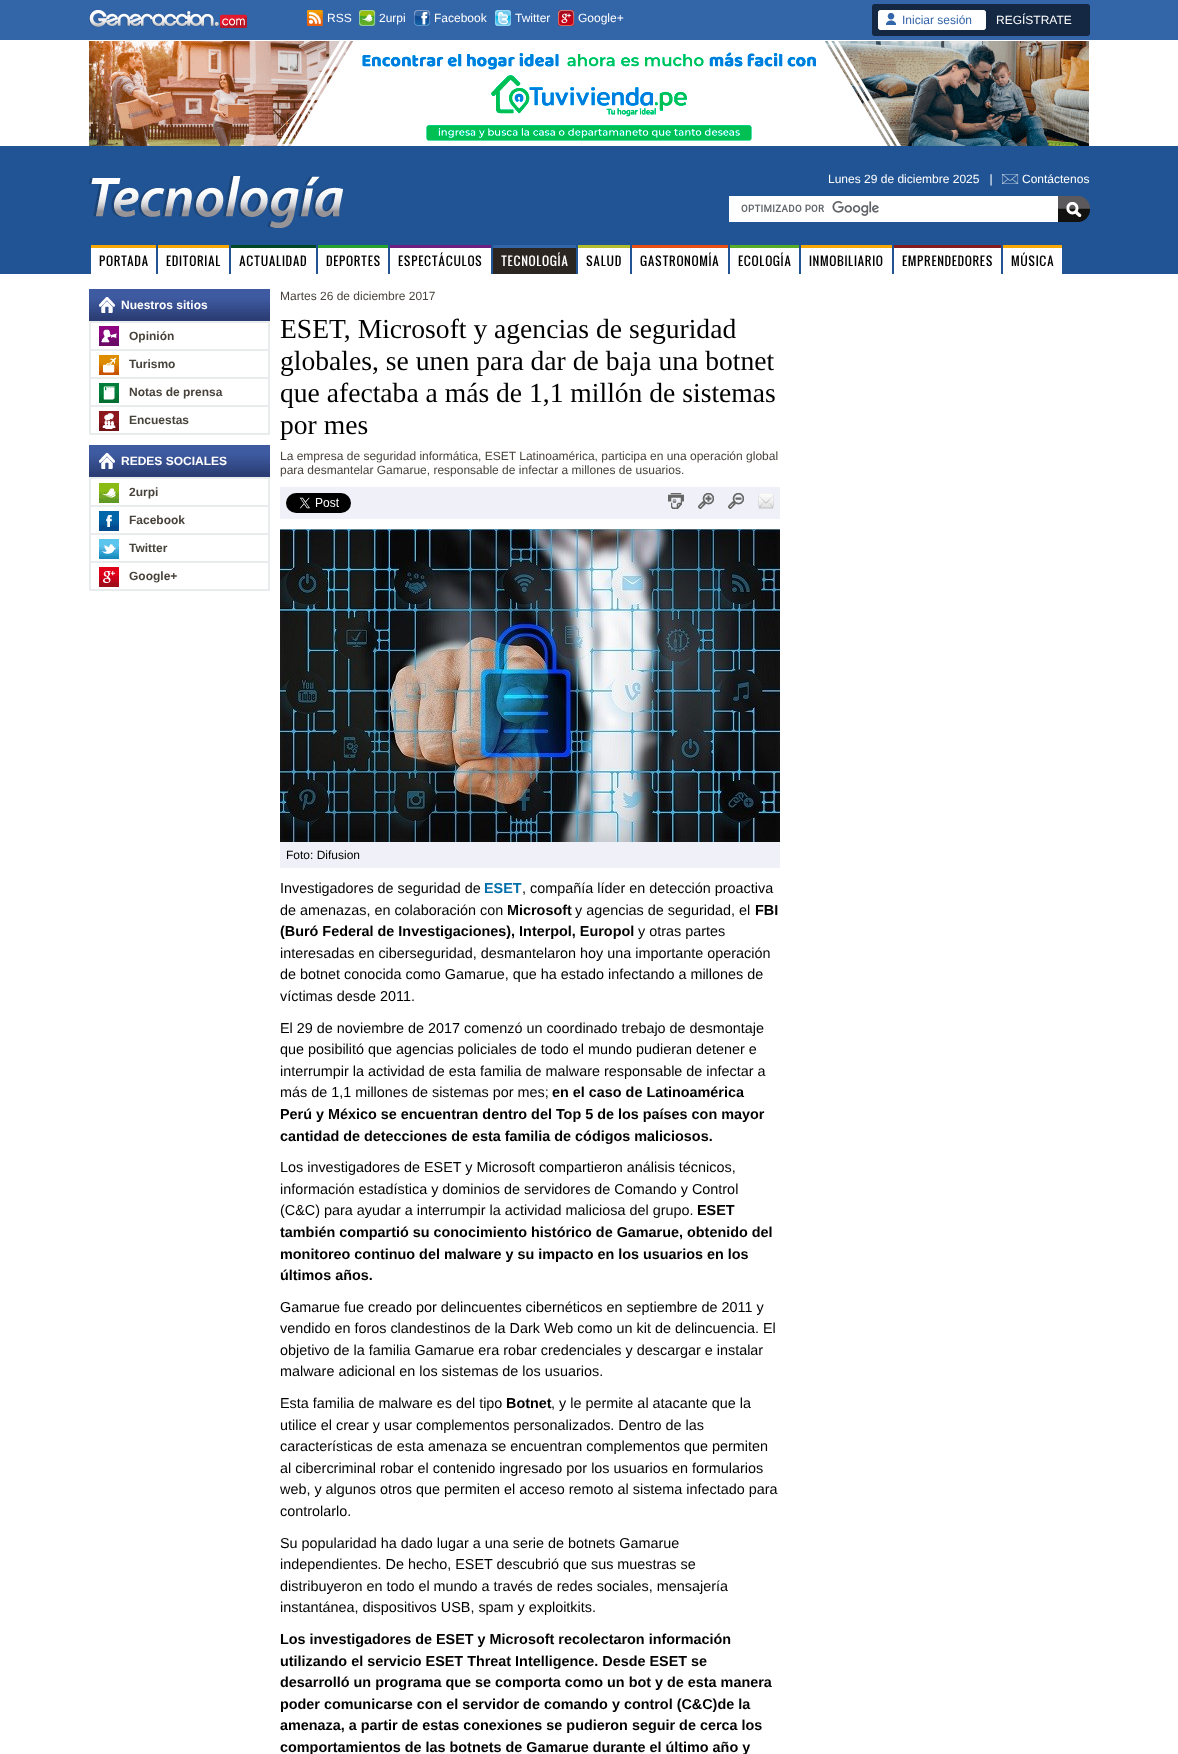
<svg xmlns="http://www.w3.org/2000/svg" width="1178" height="1754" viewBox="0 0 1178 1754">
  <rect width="100%" height="100%" fill="#ffffff"/>
  <rect x="0" y="0" width="1178" height="40" fill="#3365a9"/>
  <image x="89" y="10" width="158" height="18" href="img1.png"/>
  <image x="307" y="10" width="16" height="16" href="img2.png"/>
  <text x="327" y="22" font-family="Liberation Sans" font-size="12" fill="#ffffff">RSS</text>
  <image x="359" y="10" width="17" height="16" href="img3.png"/>
  <text x="379" y="22" font-family="Liberation Sans" font-size="12" fill="#ffffff">2urpi</text>
  <image x="414" y="10" width="17" height="16" href="img4.png"/>
  <text x="434" y="22" font-family="Liberation Sans" font-size="12" fill="#ffffff">Facebook</text>
  <image x="495" y="10" width="16" height="16" href="img5.png"/>
  <text x="515" y="22" font-family="Liberation Sans" font-size="12" fill="#ffffff">Twitter</text>
  <image x="558" y="10" width="17" height="16" href="img6.png"/>
  <text x="578" y="22" font-family="Liberation Sans" font-size="12" fill="#ffffff">Google+</text>
  <image x="872" y="4" width="218" height="32" href="img7.png"/>
  <image x="886" y="13" width="10" height="12" href="img8.png"/>
  <text x="902" y="24" font-family="Liberation Sans" font-size="12" fill="#3466aa">Iniciar sesión</text>
  <text x="996" y="24" font-family="Liberation Sans" font-size="12" fill="#ffffff">REGÍSTRATE</text>
  <image x="89" y="41" width="1000" height="105" href="img9.png"/>
  <rect x="0" y="146" width="1178" height="128" fill="#215494"/>
  <image x="89" y="176" width="254" height="52" href="img10.png"/>
  <text x="828" y="183" font-family="Liberation Sans" font-size="12" fill="#ffffff" xml:space="preserve">Lunes 29 de diciembre 2025   |</text>
  <image x="1002" y="174" width="17" height="10" href="img11.png"/>
  <text x="1022" y="183" font-family="Liberation Sans" font-size="12" fill="#ffffff">Contáctenos</text>
  <rect x="729" y="196" width="329" height="26" fill="#ffffff"/>
  <image x="741" y="201" width="138" height="15" href="img12.png"/>
  <image x="1058" y="196" width="32" height="26" href="img13.png"/>
  <rect x="91" y="248" width="65" height="26" fill="#ffffff"/>
  <rect x="91" y="245" width="65" height="3" fill="#f7a800"/>
  <text x="99" y="266" font-family="Oswald" font-size="12" letter-spacing="0.6" fill="#000000">PORTADA</text>
  <rect x="158" y="248" width="71" height="26" fill="#ffffff"/>
  <rect x="158" y="245" width="71" height="3" fill="#f7a800"/>
  <text x="166" y="266" font-family="Oswald" font-size="12" letter-spacing="0.6" fill="#000000">EDITORIAL</text>
  <rect x="231" y="248" width="85" height="26" fill="#ffffff"/>
  <rect x="231" y="245" width="85" height="3" fill="#004723"/>
  <text x="239" y="266" font-family="Oswald" font-size="12" letter-spacing="0.6" fill="#000000">ACTUALIDAD</text>
  <rect x="318" y="248" width="70" height="26" fill="#ffffff"/>
  <rect x="318" y="245" width="70" height="3" fill="#27a22d"/>
  <text x="326" y="266" font-family="Oswald" font-size="12" letter-spacing="0.6" fill="#000000">DEPORTES</text>
  <rect x="390" y="248" width="101" height="26" fill="#ffffff"/>
  <rect x="390" y="245" width="101" height="3" fill="#6d1f80"/>
  <text x="398" y="266" font-family="Oswald" font-size="12" letter-spacing="0.6" fill="#000000">ESPECTÁCULOS</text>
  <rect x="493" y="245" width="83" height="3" fill="#3365a9"/>
  <rect x="493" y="248" width="83" height="26" fill="#2c2622"/>
  <text x="501" y="266" font-family="Oswald" font-size="12" letter-spacing="0.6" fill="#ffffff">TECNOLOGÍA</text>
  <rect x="578" y="248" width="52" height="26" fill="#ffffff"/>
  <rect x="578" y="245" width="52" height="3" fill="#b1bd2d"/>
  <text x="586" y="266" font-family="Oswald" font-size="12" letter-spacing="0.6" fill="#000000">SALUD</text>
  <rect x="632" y="248" width="96" height="26" fill="#ffffff"/>
  <rect x="632" y="245" width="96" height="3" fill="#e75012"/>
  <text x="640" y="266" font-family="Oswald" font-size="12" letter-spacing="0.6" fill="#000000">GASTRONOMÍA</text>
  <rect x="730" y="248" width="69" height="26" fill="#ffffff"/>
  <rect x="730" y="245" width="69" height="3" fill="#56ab27"/>
  <text x="738" y="266" font-family="Oswald" font-size="12" letter-spacing="0.6" fill="#000000">ECOLOGÍA</text>
  <rect x="801" y="248" width="91" height="26" fill="#ffffff"/>
  <rect x="801" y="245" width="91" height="3" fill="#f7a800"/>
  <text x="809" y="266" font-family="Oswald" font-size="12" letter-spacing="0.6" fill="#000000">INMOBILIARIO</text>
  <rect x="894" y="248" width="107" height="26" fill="#ffffff"/>
  <rect x="894" y="245" width="107" height="3" fill="#841c1f"/>
  <text x="902" y="266" font-family="Oswald" font-size="12" letter-spacing="0.6" fill="#000000">EMPRENDEDORES</text>
  <rect x="1003" y="248" width="59" height="26" fill="#ffffff"/>
  <rect x="1003" y="245" width="59" height="3" fill="#f7a800"/>
  <text x="1011" y="266" font-family="Oswald" font-size="12" letter-spacing="0.6" fill="#000000">MÚSICA</text>
  <image x="89" y="289" width="181" height="32" href="img14.png"/>
  <image x="99" y="297" width="16" height="16" href="img15.png"/>
  <text x="121" y="309" font-family="Liberation Sans" font-size="12" font-weight="bold" fill="#ffffff">Nuestros sitios</text>
  <rect x="89" y="321" width="181" height="2" fill="#e9eced"/>
  <rect x="268" y="321" width="2" height="114" fill="#e9eced"/>
  <rect x="89" y="321" width="2" height="114" fill="#e9eced"/>
  <image x="99" y="326" width="20" height="20" href="img16.png"/>
  <rect x="91" y="349" width="177" height="2" fill="#e9eced"/>
  <text x="129" y="340" font-family="Liberation Sans" font-size="12" font-weight="bold" fill="#47433b">Opinión</text>
  <image x="99" y="355" width="20" height="20" href="img17.png"/>
  <rect x="91" y="377" width="177" height="2" fill="#e9eced"/>
  <text x="129" y="368" font-family="Liberation Sans" font-size="12" font-weight="bold" fill="#47433b">Turismo</text>
  <image x="99" y="383" width="20" height="20" href="img18.png"/>
  <rect x="91" y="405" width="177" height="2" fill="#e9eced"/>
  <text x="129" y="396" font-family="Liberation Sans" font-size="12" font-weight="bold" fill="#47433b">Notas de prensa</text>
  <image x="99" y="411" width="20" height="20" href="img19.png"/>
  <rect x="91" y="433" width="177" height="2" fill="#e9eced"/>
  <text x="129" y="424" font-family="Liberation Sans" font-size="12" font-weight="bold" fill="#47433b">Encuestas</text>
  <image x="89" y="445" width="181" height="32" href="img14.png"/>
  <image x="99" y="453" width="16" height="16" href="img20.png"/>
  <text x="121" y="465" font-family="Liberation Sans" font-size="12" font-weight="bold" fill="#ffffff">REDES SOCIALES</text>
  <rect x="89" y="477" width="181" height="2" fill="#e9eced"/>
  <rect x="268" y="477" width="2" height="114" fill="#e9eced"/>
  <rect x="89" y="477" width="2" height="114" fill="#e9eced"/>
  <image x="99" y="483" width="20" height="20" href="img21.png"/>
  <rect x="91" y="505" width="177" height="2" fill="#e9eced"/>
  <text x="129" y="496" font-family="Liberation Sans" font-size="12" font-weight="bold" fill="#47433b">2urpi</text>
  <image x="99" y="511" width="20" height="20" href="img22.png"/>
  <rect x="91" y="533" width="177" height="2" fill="#e9eced"/>
  <text x="129" y="524" font-family="Liberation Sans" font-size="12" font-weight="bold" fill="#47433b">Facebook</text>
  <image x="99" y="539" width="20" height="20" href="img23.png"/>
  <rect x="91" y="561" width="177" height="2" fill="#e9eced"/>
  <text x="129" y="552" font-family="Liberation Sans" font-size="12" font-weight="bold" fill="#47433b">Twitter</text>
  <image x="99" y="567" width="20" height="20" href="img24.png"/>
  <rect x="91" y="589" width="177" height="2" fill="#e9eced"/>
  <text x="129" y="580" font-family="Liberation Sans" font-size="12" font-weight="bold" fill="#47433b">Google+</text>
  <text x="280" y="300" font-family="Liberation Sans" font-size="12" fill="#47433b">Martes 26 de diciembre 2017</text>
  <text x="280" y="338" font-family="Liberation Serif" font-size="27.6" fill="#000000">ESET, Microsoft y agencias de seguridad</text>
  <text x="280" y="370" font-family="Liberation Serif" font-size="27.6" fill="#000000">globales, se unen para dar de baja una botnet</text>
  <text x="280" y="402" font-family="Liberation Serif" font-size="27.6" fill="#000000">que afectaba a más de 1,1 millón de sistemas</text>
  <text x="280" y="434" font-family="Liberation Serif" font-size="27.6" fill="#000000">por mes</text>
  <text x="280" y="460" font-family="Liberation Sans" font-size="12" fill="#47433b">La empresa de seguridad informática, ESET Latinoamérica, participa en una operación global</text>
  <text x="280" y="474" font-family="Liberation Sans" font-size="12" fill="#47433b">para desmantelar Gamarue, responsable de infectar a millones de usuarios.</text>
  <rect x="280" y="487" width="500" height="32" fill="#eff0f8"/>
  <image x="286" y="493" width="65" height="20" href="img25.png"/>
  <image x="668" y="493" width="16" height="16" href="img26.png"/>
  <image x="698" y="493" width="16" height="16" href="img27.png"/>
  <image x="728" y="493" width="16" height="16" href="img28.png"/>
  <image x="758" y="493" width="16" height="16" href="img29.png"/>
  <image x="280" y="529" width="500" height="313" href="img30.png"/>
  <rect x="280" y="842" width="500" height="26" fill="#eff0f8"/>
  <text x="286" y="859" font-family="Liberation Sans" font-size="12" fill="#000000">Foto: Difusion</text>
  <text x="280" y="893" font-family="Liberation Sans" font-size="14.4" fill="#000000">Investigadores de seguridad de</text>
  <text x="484" y="893" font-family="Liberation Sans" font-size="14.4" font-weight="bold" fill="#006faa">ESET</text>
  <text x="522" y="893" font-family="Liberation Sans" font-size="14.4" fill="#000000">, compañía líder en detección proactiva</text>
  <text x="280" y="915" font-family="Liberation Sans" font-size="14.4" fill="#000000">de amenazas, en colaboración con</text>
  <text x="507" y="915" font-family="Liberation Sans" font-size="14.4" font-weight="bold" fill="#000000">Microsoft</text>
  <text x="575" y="915" font-family="Liberation Sans" font-size="14.4" fill="#000000">y agencias de seguridad, el</text>
  <text x="755" y="915" font-family="Liberation Sans" font-size="14.4" font-weight="bold" fill="#000000">FBI</text>
  <text x="280" y="936" font-family="Liberation Sans" font-size="14.4" font-weight="bold" fill="#000000">(Buró Federal de Investigaciones), Interpol, Europol</text>
  <text x="638" y="936" font-family="Liberation Sans" font-size="14.4" fill="#000000">y otras partes</text>
  <text x="280" y="958" font-family="Liberation Sans" font-size="14.4" fill="#000000">interesadas en ciberseguridad, desmantelaron hoy una importante operación</text>
  <text x="280" y="979" font-family="Liberation Sans" font-size="14.4" fill="#000000">de botnet conocida como Gamarue, que ha estado infectando a millones de</text>
  <text x="280" y="1001" font-family="Liberation Sans" font-size="14.4" fill="#000000">víctimas desde 2011.</text>
  <text x="280" y="1033" font-family="Liberation Sans" font-size="14.4" fill="#000000">El 29 de noviembre de 2017 comenzó un coordinado trebajo de desmontaje</text>
  <text x="280" y="1054" font-family="Liberation Sans" font-size="14.4" fill="#000000">que posibilitó que agencias policiales de todo el mundo pudieran detener e</text>
  <text x="280" y="1076" font-family="Liberation Sans" font-size="14.4" fill="#000000">interrumpir la actividad de esta familia de malware responsable de infectar a</text>
  <text x="280" y="1097" font-family="Liberation Sans" font-size="14.4" fill="#000000">más de 1,1 millones de sistemas por mes;</text>
  <text x="552" y="1097" font-family="Liberation Sans" font-size="14.4" font-weight="bold" fill="#000000">en el caso de Latinoamérica</text>
  <text x="280" y="1119" font-family="Liberation Sans" font-size="14.4" font-weight="bold" fill="#000000">Perú y México se encuentran dentro del Top 5 de los países con mayor</text>
  <text x="280" y="1141" font-family="Liberation Sans" font-size="14.4" font-weight="bold" fill="#000000">cantidad de detecciones de esta familia de códigos maliciosos.</text>
  <text x="280" y="1172" font-family="Liberation Sans" font-size="14.4" fill="#000000">Los investigadores de ESET y Microsoft compartieron análisis técnicos,</text>
  <text x="280" y="1194" font-family="Liberation Sans" font-size="14.4" fill="#000000">información estadística y dominios de servidores de Comando y Control</text>
  <text x="280" y="1215" font-family="Liberation Sans" font-size="14.4" fill="#000000">(C&amp;C) para ayudar a interrumpir la actividad maliciosa del grupo.</text>
  <text x="697" y="1215" font-family="Liberation Sans" font-size="14.4" font-weight="bold" fill="#000000">ESET</text>
  <text x="280" y="1237" font-family="Liberation Sans" font-size="14.4" font-weight="bold" fill="#000000">también compartió su conocimiento histórico de Gamarue, obtenido del</text>
  <text x="280" y="1259" font-family="Liberation Sans" font-size="14.4" font-weight="bold" fill="#000000">monitoreo continuo del malware y su impacto en los usuarios en los</text>
  <text x="280" y="1280" font-family="Liberation Sans" font-size="14.4" font-weight="bold" fill="#000000">últimos años.</text>
  <text x="280" y="1312" font-family="Liberation Sans" font-size="14.4" fill="#000000">Gamarue fue creado por delincuentes cibernéticos en septiembre de 2011 y</text>
  <text x="280" y="1333" font-family="Liberation Sans" font-size="14.4" fill="#000000">vendido en foros clandestinos de la Dark Web como un kit de delincuencia. El</text>
  <text x="280" y="1355" font-family="Liberation Sans" font-size="14.4" fill="#000000">objetivo de la familia Gamarue era robar credenciales y descargar e instalar</text>
  <text x="280" y="1376" font-family="Liberation Sans" font-size="14.4" fill="#000000">malware adicional en los sistemas de los usuarios.</text>
  <text x="280" y="1408" font-family="Liberation Sans" font-size="14.4" fill="#000000">Esta familia de malware es del tipo</text>
  <text x="506" y="1408" font-family="Liberation Sans" font-size="14.4" font-weight="bold" fill="#000000">Botnet</text>
  <text x="551" y="1408" font-family="Liberation Sans" font-size="14.4" fill="#000000">, y le permite al atacante que la</text>
  <text x="280" y="1430" font-family="Liberation Sans" font-size="14.4" fill="#000000">utilice el crear y usar complementos personalizados. Dentro de las</text>
  <text x="280" y="1451" font-family="Liberation Sans" font-size="14.4" fill="#000000">características de esta amenaza se encuentran complementos que permiten</text>
  <text x="280" y="1473" font-family="Liberation Sans" font-size="14.4" fill="#000000">al cibercriminal robar el contenido ingresado por los usuarios en formularios</text>
  <text x="280" y="1494" font-family="Liberation Sans" font-size="14.4" fill="#000000">web, y algunos otros que permiten el acceso remoto al sistema infectado para</text>
  <text x="280" y="1516" font-family="Liberation Sans" font-size="14.4" fill="#000000">controlarlo.</text>
  <text x="280" y="1548" font-family="Liberation Sans" font-size="14.4" fill="#000000">Su popularidad ha dado lugar a una serie de botnets Gamarue</text>
  <text x="280" y="1569" font-family="Liberation Sans" font-size="14.4" fill="#000000">independientes. De hecho, ESET descubrió que sus muestras se</text>
  <text x="280" y="1591" font-family="Liberation Sans" font-size="14.4" fill="#000000">distribuyeron en todo el mundo a través de redes sociales, mensajería</text>
  <text x="280" y="1612" font-family="Liberation Sans" font-size="14.4" fill="#000000">instantánea, dispositivos USB, spam y exploitkits.</text>
  <text x="280" y="1644" font-family="Liberation Sans" font-size="14.4" font-weight="bold" fill="#000000">Los investigadores de ESET y Microsoft recolectaron información</text>
  <text x="280" y="1666" font-family="Liberation Sans" font-size="14.4" font-weight="bold" fill="#000000">utilizando el servicio ESET Threat Intelligence. Desde ESET se</text>
  <text x="280" y="1687" font-family="Liberation Sans" font-size="14.4" font-weight="bold" fill="#000000">desarrolló un programa que se comporta como un bot y de esta manera</text>
  <text x="280" y="1709" font-family="Liberation Sans" font-size="14.4" font-weight="bold" fill="#000000">poder comunicarse con el servidor de comando y control (C&amp;C)de la</text>
  <text x="280" y="1730" font-family="Liberation Sans" font-size="14.4" font-weight="bold" fill="#000000">amenaza, a partir de estas conexiones se pudieron seguir de cerca los</text>
  <text x="280" y="1752" font-family="Liberation Sans" font-size="14.4" font-weight="bold" fill="#000000">comportamientos de las botnets de Gamarue durante el último año y</text>
</svg>
